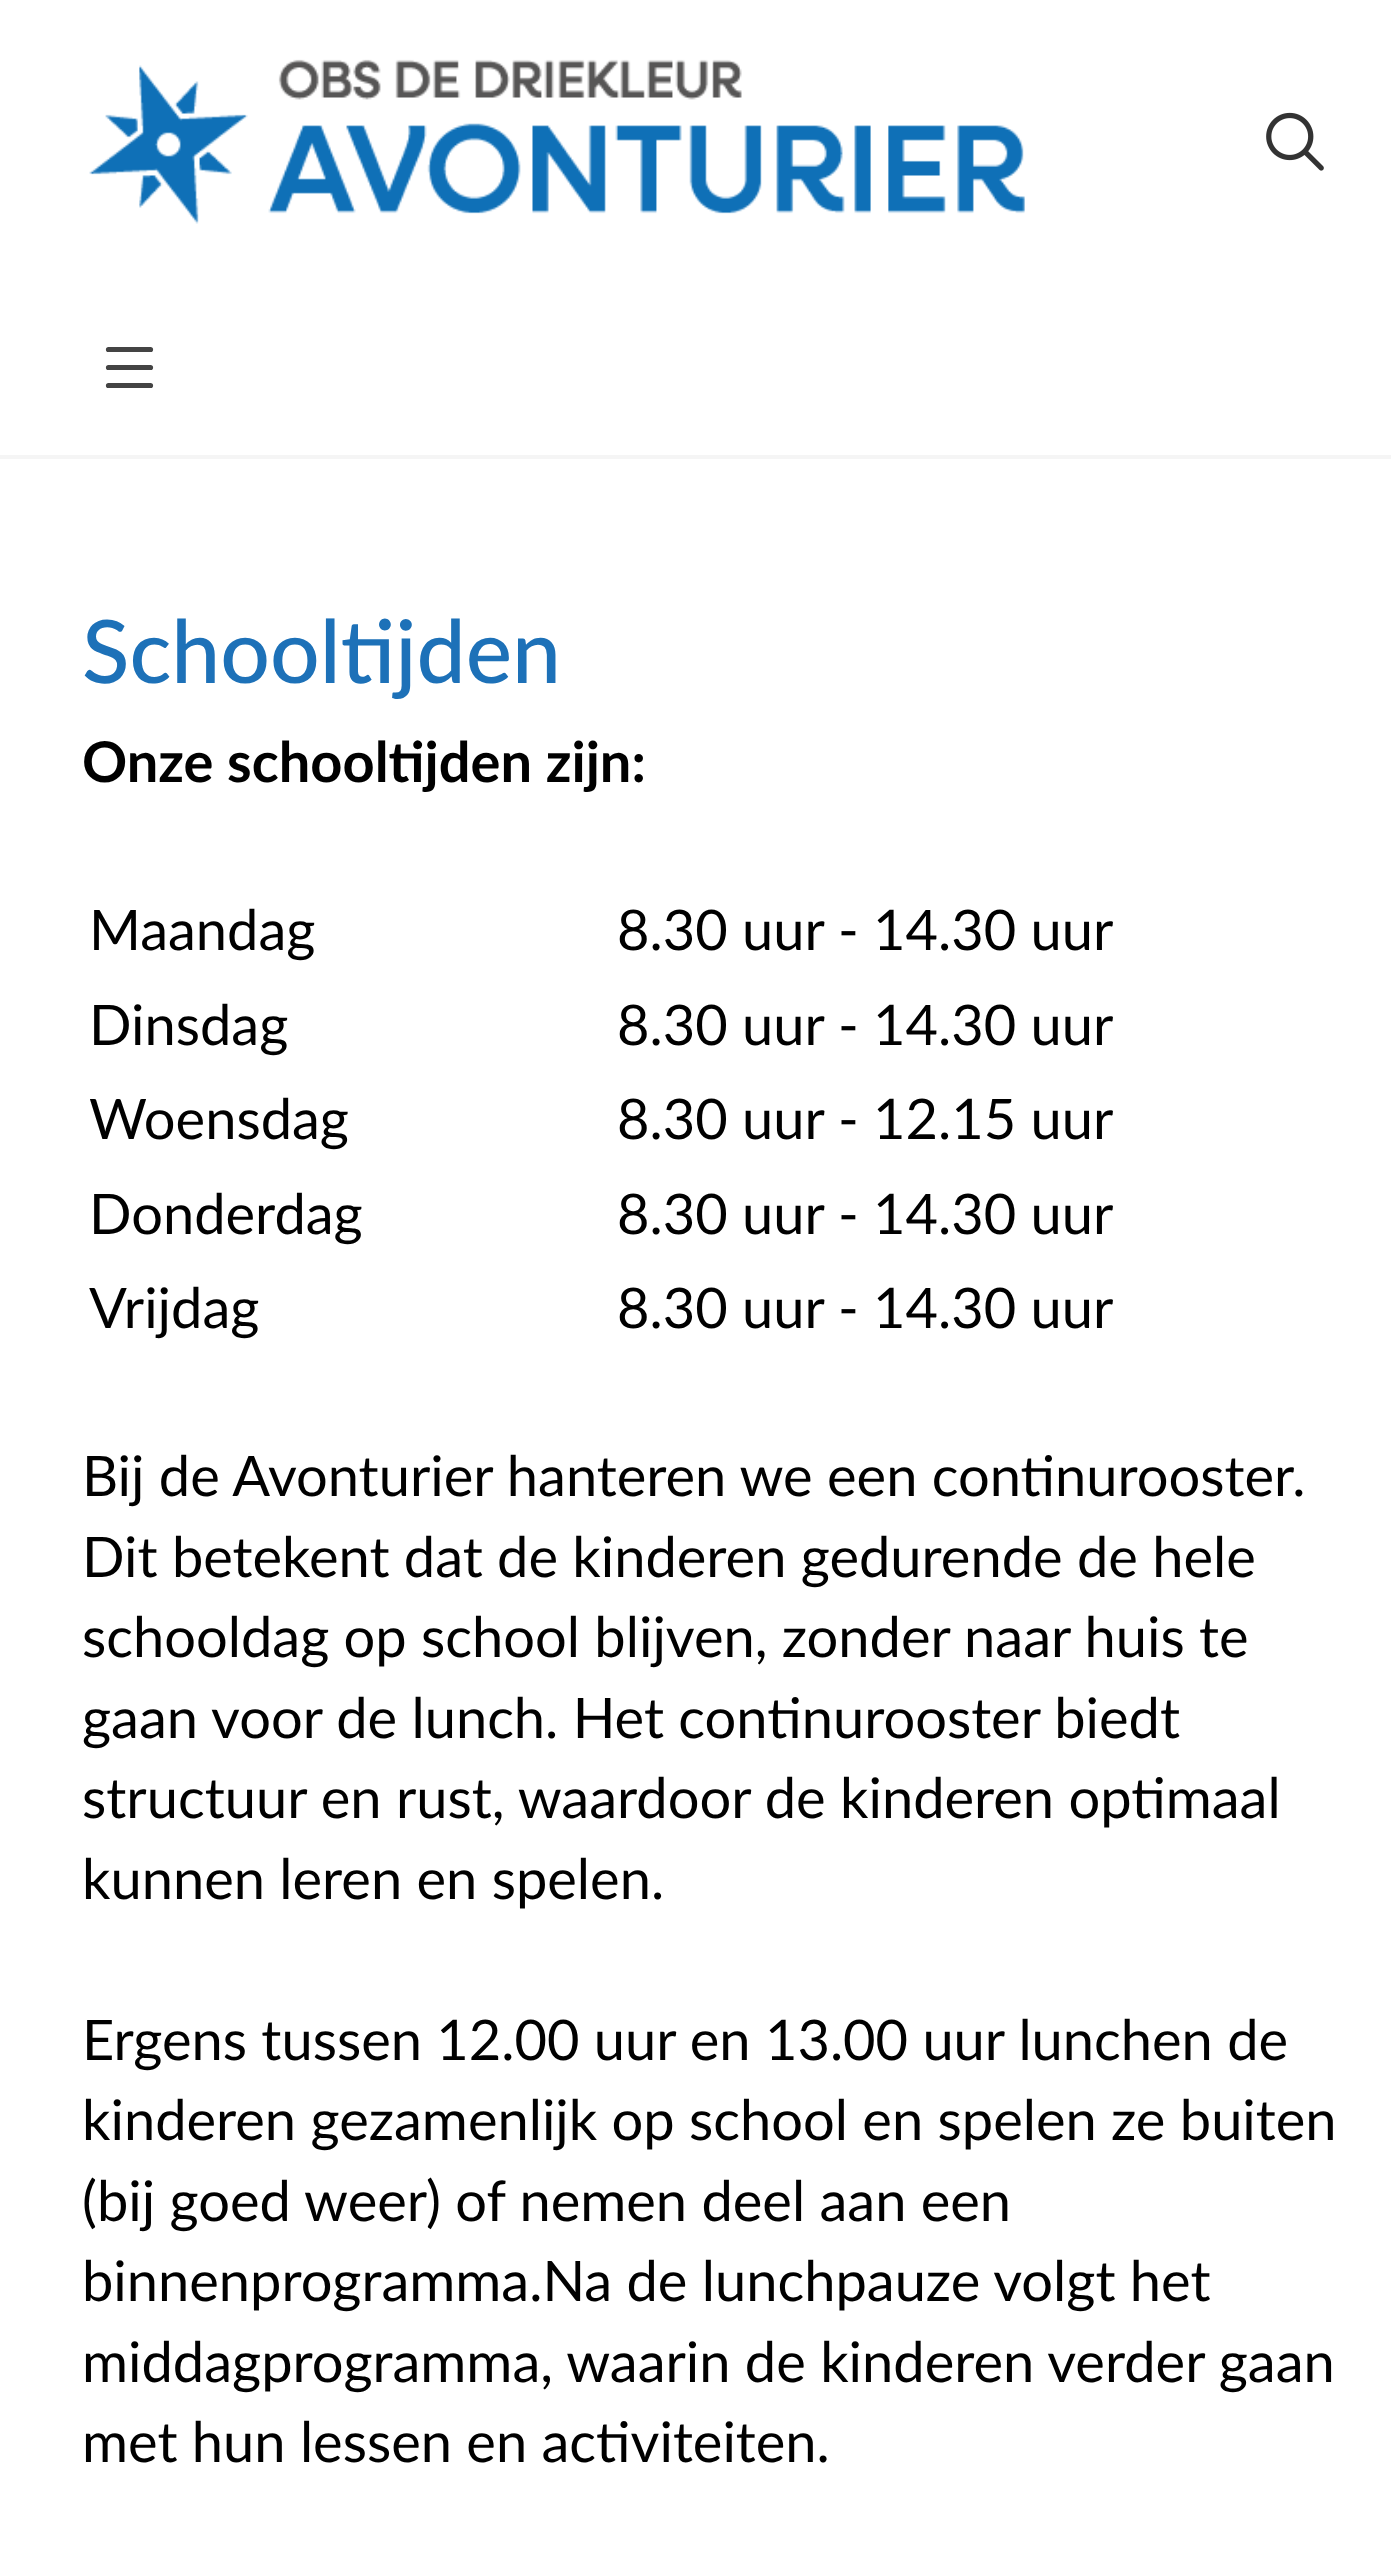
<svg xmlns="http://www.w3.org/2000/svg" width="1391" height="2554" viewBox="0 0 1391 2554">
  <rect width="100%" height="100%" fill="#ffffff"/>
  <rect x="0" y="455" width="1391" height="4" fill="#f5f5f5"/>
  <image x="89" y="59" width="936" height="165" href="img1.png"/>
  <image x="1266" y="112" width="58" height="59" href="img2.png"/>
  <path d="M108.5 349.5H150.5M108.5 367.5H150.5M150.5 385.5H108.5" fill="none" stroke="#444444" stroke-width="5.2" stroke-linecap="round"/>
  <text x="82" y="683" font-family="Lato" font-size="87.5" font-weight="500" fill="#1d71b8">Schooltijden</text>
  <text x="82" y="782" font-family="Lato" font-size="56" font-weight="bold" fill="#000000">Onze schooltijden zijn:</text>
  <text x="89" y="950" font-family="Lato" font-size="56" fill="#000000">Maandag</text>
  <text x="617" y="950" font-family="Lato" font-size="56" fill="#000000">8.30 uur - 14.30 uur</text>
  <text x="89" y="1045" font-family="Lato" font-size="56" fill="#000000">Dinsdag</text>
  <text x="617" y="1045" font-family="Lato" font-size="56" fill="#000000">8.30 uur - 14.30 uur</text>
  <text x="89" y="1139" font-family="Lato" font-size="56" fill="#000000">Woensdag</text>
  <text x="617" y="1139" font-family="Lato" font-size="56" fill="#000000">8.30 uur - 12.15 uur</text>
  <text x="89" y="1234" font-family="Lato" font-size="56" fill="#000000">Donderdag</text>
  <text x="617" y="1234" font-family="Lato" font-size="56" fill="#000000">8.30 uur - 14.30 uur</text>
  <text x="89" y="1328" font-family="Lato" font-size="56" fill="#000000">Vrijdag</text>
  <text x="617" y="1328" font-family="Lato" font-size="56" fill="#000000">8.30 uur - 14.30 uur</text>
  <text x="82" y="1496" font-family="Lato" font-size="56" fill="#000000">Bij de Avonturier hanteren we een continurooster.</text>
  <text x="82" y="1577" font-family="Lato" font-size="56" fill="#000000">Dit betekent dat de kinderen gedurende de hele</text>
  <text x="82" y="1657" font-family="Lato" font-size="56" fill="#000000">schooldag op school blijven, zonder naar huis te</text>
  <text x="82" y="1738" font-family="Lato" font-size="56" fill="#000000">gaan voor de lunch. Het continurooster biedt</text>
  <text x="82" y="1818" font-family="Lato" font-size="56" fill="#000000">structuur en rust, waardoor de kinderen optimaal</text>
  <text x="82" y="1899" font-family="Lato" font-size="56" fill="#000000">kunnen leren en spelen.</text>
  <text x="82" y="2060" font-family="Lato" font-size="56" fill="#000000">Ergens tussen 12.00 uur en 13.00 uur lunchen de</text>
  <text x="82" y="2140" font-family="Lato" font-size="56" fill="#000000">kinderen gezamenlijk op school en spelen ze buiten</text>
  <text x="82" y="2221" font-family="Lato" font-size="56" fill="#000000">(bij goed weer) of nemen deel aan een</text>
  <text x="82" y="2301" font-family="Lato" font-size="56" fill="#000000">binnenprogramma.Na de lunchpauze volgt het</text>
  <text x="82" y="2382" font-family="Lato" font-size="56" fill="#000000">middagprogramma, waarin de kinderen verder gaan</text>
  <text x="82" y="2462" font-family="Lato" font-size="56" fill="#000000">met hun lessen en activiteiten.</text>
</svg>
